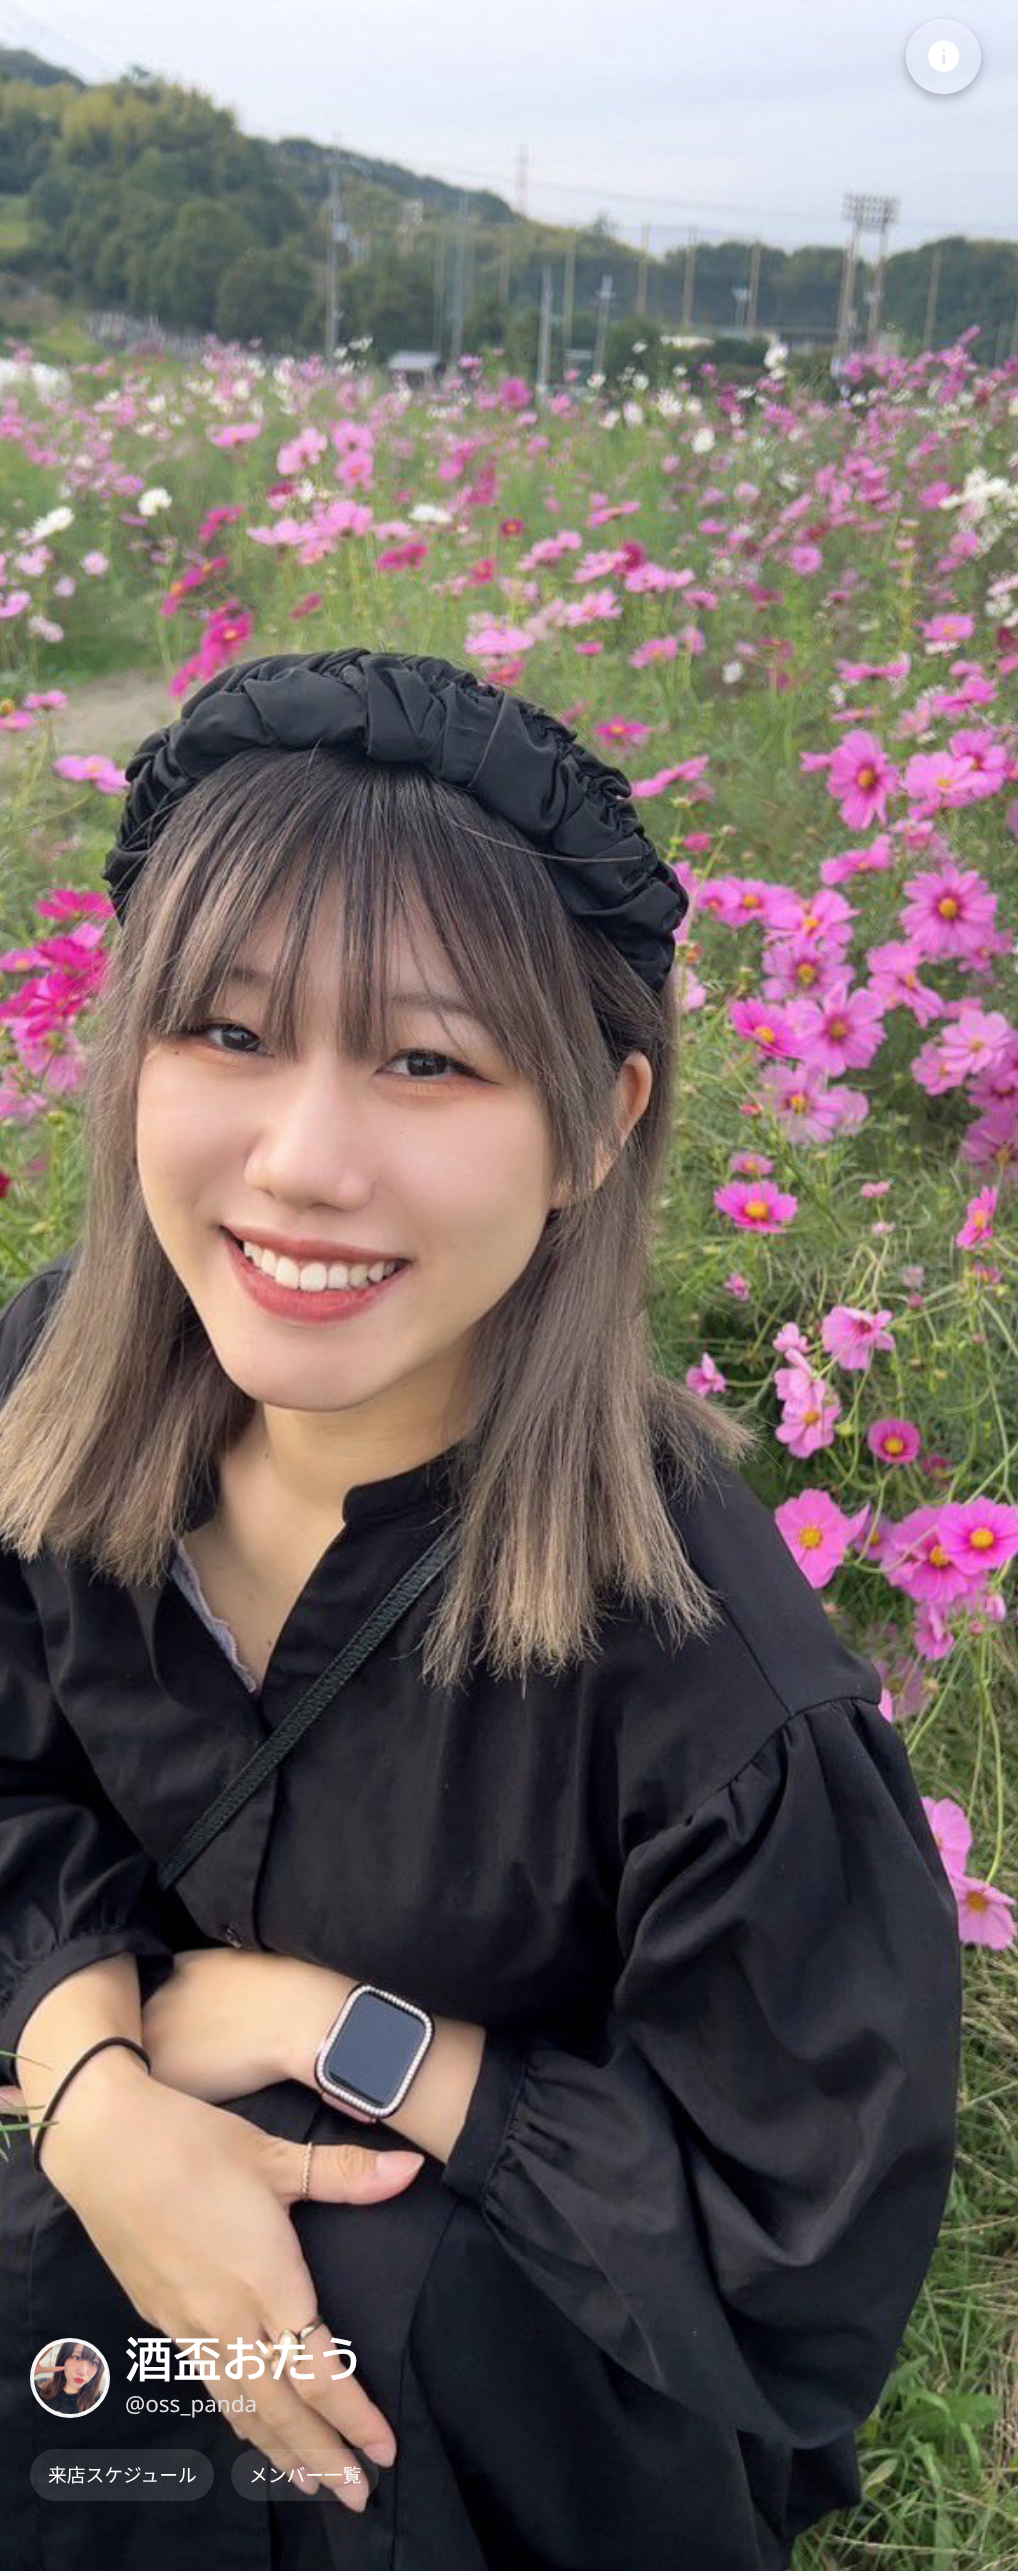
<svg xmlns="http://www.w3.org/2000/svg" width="1018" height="2571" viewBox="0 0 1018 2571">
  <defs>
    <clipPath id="clip1"><path d="M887 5H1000V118H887ZM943.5 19C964 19 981 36 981 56.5C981 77 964 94 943.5 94C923 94 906 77 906 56.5C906 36 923 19 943.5 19Z" clip-rule="evenodd"/></clipPath>
    <filter id="blur1" x="-50%" y="-200%" width="200%" height="500%"><feGaussianBlur stdDeviation="6"/></filter>
  </defs>
  <rect width="100%" height="100%" fill="#ffffff"/>
  <image x="0" y="0" width="1018" height="2571" href="img1.png"/>
  <g clip-path="url(#clip1)">
    <rect x="906" y="24" width="75" height="75" rx="37.5" fill="#000000" fill-opacity="0.25" filter="url(#blur1)"/>
  </g>
  <circle cx="943.5" cy="56.5" r="37.5" fill="#ffffff" fill-opacity="0.16"/>
  <circle cx="943.5" cy="56.5" r="37" fill="none" stroke="#ffffff" stroke-opacity="0.25"/>
  <image x="928" y="40" width="32" height="32" href="img2.png"/>
  <image x="33" y="2340" width="74" height="75" href="img3.png"/>
  <circle cx="70" cy="2378" r="38" fill="none" stroke="#ffffff" stroke-opacity="0.95" stroke-width="4"/>
  <text x="125" y="2377" font-family="BIZ UDPGothic" font-size="47.5" font-weight="bold" letter-spacing="1" fill="#ffffff">酒盃おたう</text>
  <text x="125" y="2412" font-family="Noto Sans" font-size="22.5" fill="#e2e1e1">@oss_panda</text>
  <rect x="30" y="2449" width="184" height="52" rx="26" fill="#ffffff" fill-opacity="0.12"/>
  <text x="48" y="2482" font-family="Noto Sans JP" font-size="18.75" fill="#ffffff">来店スケジュール</text>
  <rect x="231" y="2449" width="148" height="52" rx="26" fill="#ffffff" fill-opacity="0.12"/>
  <text x="249" y="2482" font-family="Noto Sans JP" font-size="18.75" fill="#ffffff">メンバー一覧</text>
</svg>
